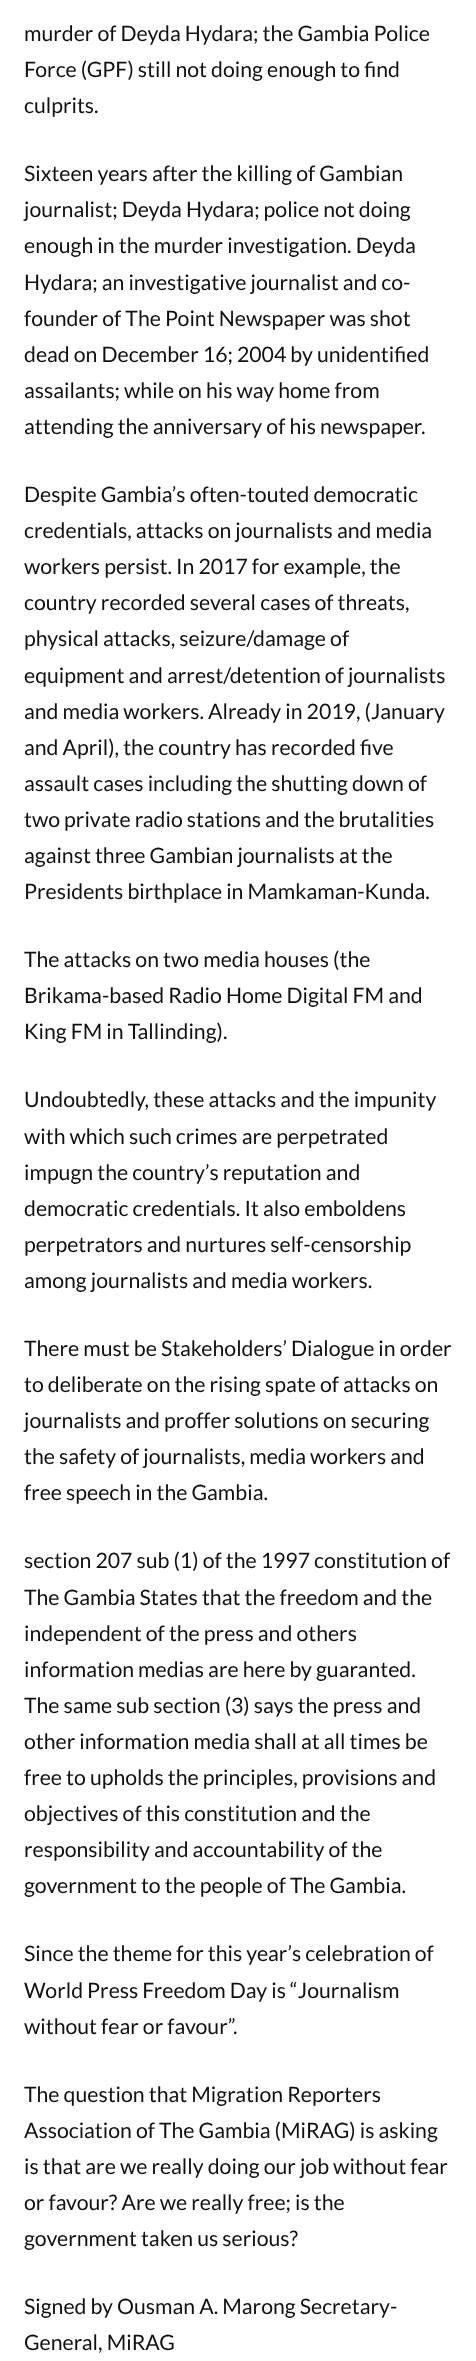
<svg xmlns="http://www.w3.org/2000/svg" width="476" height="2361" viewBox="0 0 476 2361">
  <rect width="100%" height="100%" fill="#ffffff"/>
  <text x="24" y="41" font-family="Lato" font-size="21.25" fill="#111111">murder of Deyda Hydara; the Gambia Police</text>
  <text x="24" y="77" font-family="Lato" font-size="21.25" fill="#111111">Force (GPF) still not doing enough to find</text>
  <text x="24" y="113" font-family="Lato" font-size="21.25" fill="#111111">culprits.</text>
  <text x="24" y="181" font-family="Lato" font-size="21.25" fill="#111111">Sixteen years after the killing of Gambian</text>
  <text x="24" y="217" font-family="Lato" font-size="21.25" fill="#111111">journalist; Deyda Hydara; police not doing</text>
  <text x="24" y="253" font-family="Lato" font-size="21.25" fill="#111111">enough in the murder investigation. Deyda</text>
  <text x="24" y="290" font-family="Lato" font-size="21.25" fill="#111111">Hydara; an investigative journalist and co-</text>
  <text x="24" y="326" font-family="Lato" font-size="21.25" fill="#111111">founder of The Point Newspaper was shot</text>
  <text x="24" y="362" font-family="Lato" font-size="21.25" fill="#111111">dead on December 16; 2004 by unidentified</text>
  <text x="24" y="398" font-family="Lato" font-size="21.25" fill="#111111">assailants; while on his way home from</text>
  <text x="24" y="434" font-family="Lato" font-size="21.25" fill="#111111">attending the anniversary of his newspaper.</text>
  <text x="24" y="502" font-family="Lato" font-size="21.25" fill="#111111">Despite Gambia’s often-touted democratic</text>
  <text x="24" y="538" font-family="Lato" font-size="21.25" fill="#111111">credentials, attacks on journalists and media</text>
  <text x="24" y="574" font-family="Lato" font-size="21.25" fill="#111111">workers persist. In 2017 for example, the</text>
  <text x="24" y="610" font-family="Lato" font-size="21.25" fill="#111111">country recorded several cases of threats,</text>
  <text x="24" y="646" font-family="Lato" font-size="21.25" fill="#111111">physical attacks, seizure/damage of</text>
  <text x="24" y="683" font-family="Lato" font-size="21.25" fill="#111111">equipment and arrest/detention of journalists</text>
  <text x="24" y="719" font-family="Lato" font-size="21.25" fill="#111111">and media workers. Already in 2019, (January</text>
  <text x="24" y="755" font-family="Lato" font-size="21.25" fill="#111111">and April), the country has recorded five</text>
  <text x="24" y="791" font-family="Lato" font-size="21.25" fill="#111111">assault cases including the shutting down of</text>
  <text x="24" y="827" font-family="Lato" font-size="21.25" fill="#111111">two private radio stations and the brutalities</text>
  <text x="24" y="863" font-family="Lato" font-size="21.25" fill="#111111">against three Gambian journalists at the</text>
  <text x="24" y="899" font-family="Lato" font-size="21.25" fill="#111111">Presidents birthplace in Mamkaman-Kunda.</text>
  <text x="24" y="967" font-family="Lato" font-size="21.25" fill="#111111">The attacks on two media houses (the</text>
  <text x="24" y="1003" font-family="Lato" font-size="21.25" fill="#111111">Brikama-based Radio Home Digital FM and</text>
  <text x="24" y="1039" font-family="Lato" font-size="21.25" fill="#111111">King FM in Tallinding).</text>
  <text x="24" y="1107" font-family="Lato" font-size="21.25" fill="#111111">Undoubtedly, these attacks and the impunity</text>
  <text x="24" y="1144" font-family="Lato" font-size="21.25" fill="#111111">with which such crimes are perpetrated</text>
  <text x="24" y="1180" font-family="Lato" font-size="21.25" fill="#111111">impugn the country’s reputation and</text>
  <text x="24" y="1216" font-family="Lato" font-size="21.25" fill="#111111">democratic credentials. It also emboldens</text>
  <text x="24" y="1252" font-family="Lato" font-size="21.25" fill="#111111">perpetrators and nurtures self-censorship</text>
  <text x="24" y="1288" font-family="Lato" font-size="21.25" fill="#111111">among journalists and media workers.</text>
  <text x="24" y="1356" font-family="Lato" font-size="21.25" fill="#111111">There must be Stakeholders’ Dialogue in order</text>
  <text x="24" y="1392" font-family="Lato" font-size="21.25" fill="#111111">to deliberate on the rising spate of attacks on</text>
  <text x="24" y="1428" font-family="Lato" font-size="21.25" fill="#111111">journalists and proffer solutions on securing</text>
  <text x="24" y="1464" font-family="Lato" font-size="21.25" fill="#111111">the safety of journalists, media workers and</text>
  <text x="24" y="1500" font-family="Lato" font-size="21.25" fill="#111111">free speech in the Gambia.</text>
  <text x="24" y="1568" font-family="Lato" font-size="21.25" fill="#111111">section 207 sub (1) of the 1997 constitution of</text>
  <text x="24" y="1605" font-family="Lato" font-size="21.25" fill="#111111">The Gambia States that the freedom and the</text>
  <text x="24" y="1641" font-family="Lato" font-size="21.25" fill="#111111">independent of the press and others</text>
  <text x="24" y="1677" font-family="Lato" font-size="21.25" fill="#111111">information medias are here by guaranted.</text>
  <text x="24" y="1713" font-family="Lato" font-size="21.25" fill="#111111">The same sub section (3) says the press and</text>
  <text x="24" y="1749" font-family="Lato" font-size="21.25" fill="#111111">other information media shall at all times be</text>
  <text x="24" y="1785" font-family="Lato" font-size="21.25" fill="#111111">free to upholds the principles, provisions and</text>
  <text x="24" y="1821" font-family="Lato" font-size="21.25" fill="#111111">objectives of this constitution and the</text>
  <text x="24" y="1857" font-family="Lato" font-size="21.25" fill="#111111">responsibility and accountability of the</text>
  <text x="24" y="1893" font-family="Lato" font-size="21.25" fill="#111111">government to the people of The Gambia.</text>
  <text x="24" y="1961" font-family="Lato" font-size="21.25" fill="#111111">Since the theme for this year’s celebration of</text>
  <text x="24" y="1998" font-family="Lato" font-size="21.25" fill="#111111">World Press Freedom Day is “Journalism</text>
  <text x="24" y="2034" font-family="Lato" font-size="21.25" fill="#111111">without fear or favour”.</text>
  <text x="24" y="2102" font-family="Lato" font-size="21.25" fill="#111111">The question that Migration Reporters</text>
  <text x="24" y="2138" font-family="Lato" font-size="21.25" fill="#111111">Association of The Gambia (MiRAG) is asking</text>
  <text x="24" y="2174" font-family="Lato" font-size="21.25" fill="#111111">is that are we really doing our job without fear</text>
  <text x="24" y="2210" font-family="Lato" font-size="21.25" fill="#111111">or favour? Are we really free; is the</text>
  <text x="24" y="2246" font-family="Lato" font-size="21.25" fill="#111111">government taken us serious?</text>
  <text x="24" y="2314" font-family="Lato" font-size="21.25" fill="#111111">Signed by Ousman A. Marong Secretary-</text>
  <text x="24" y="2350" font-family="Lato" font-size="21.25" fill="#111111">General, MiRAG</text>
</svg>
